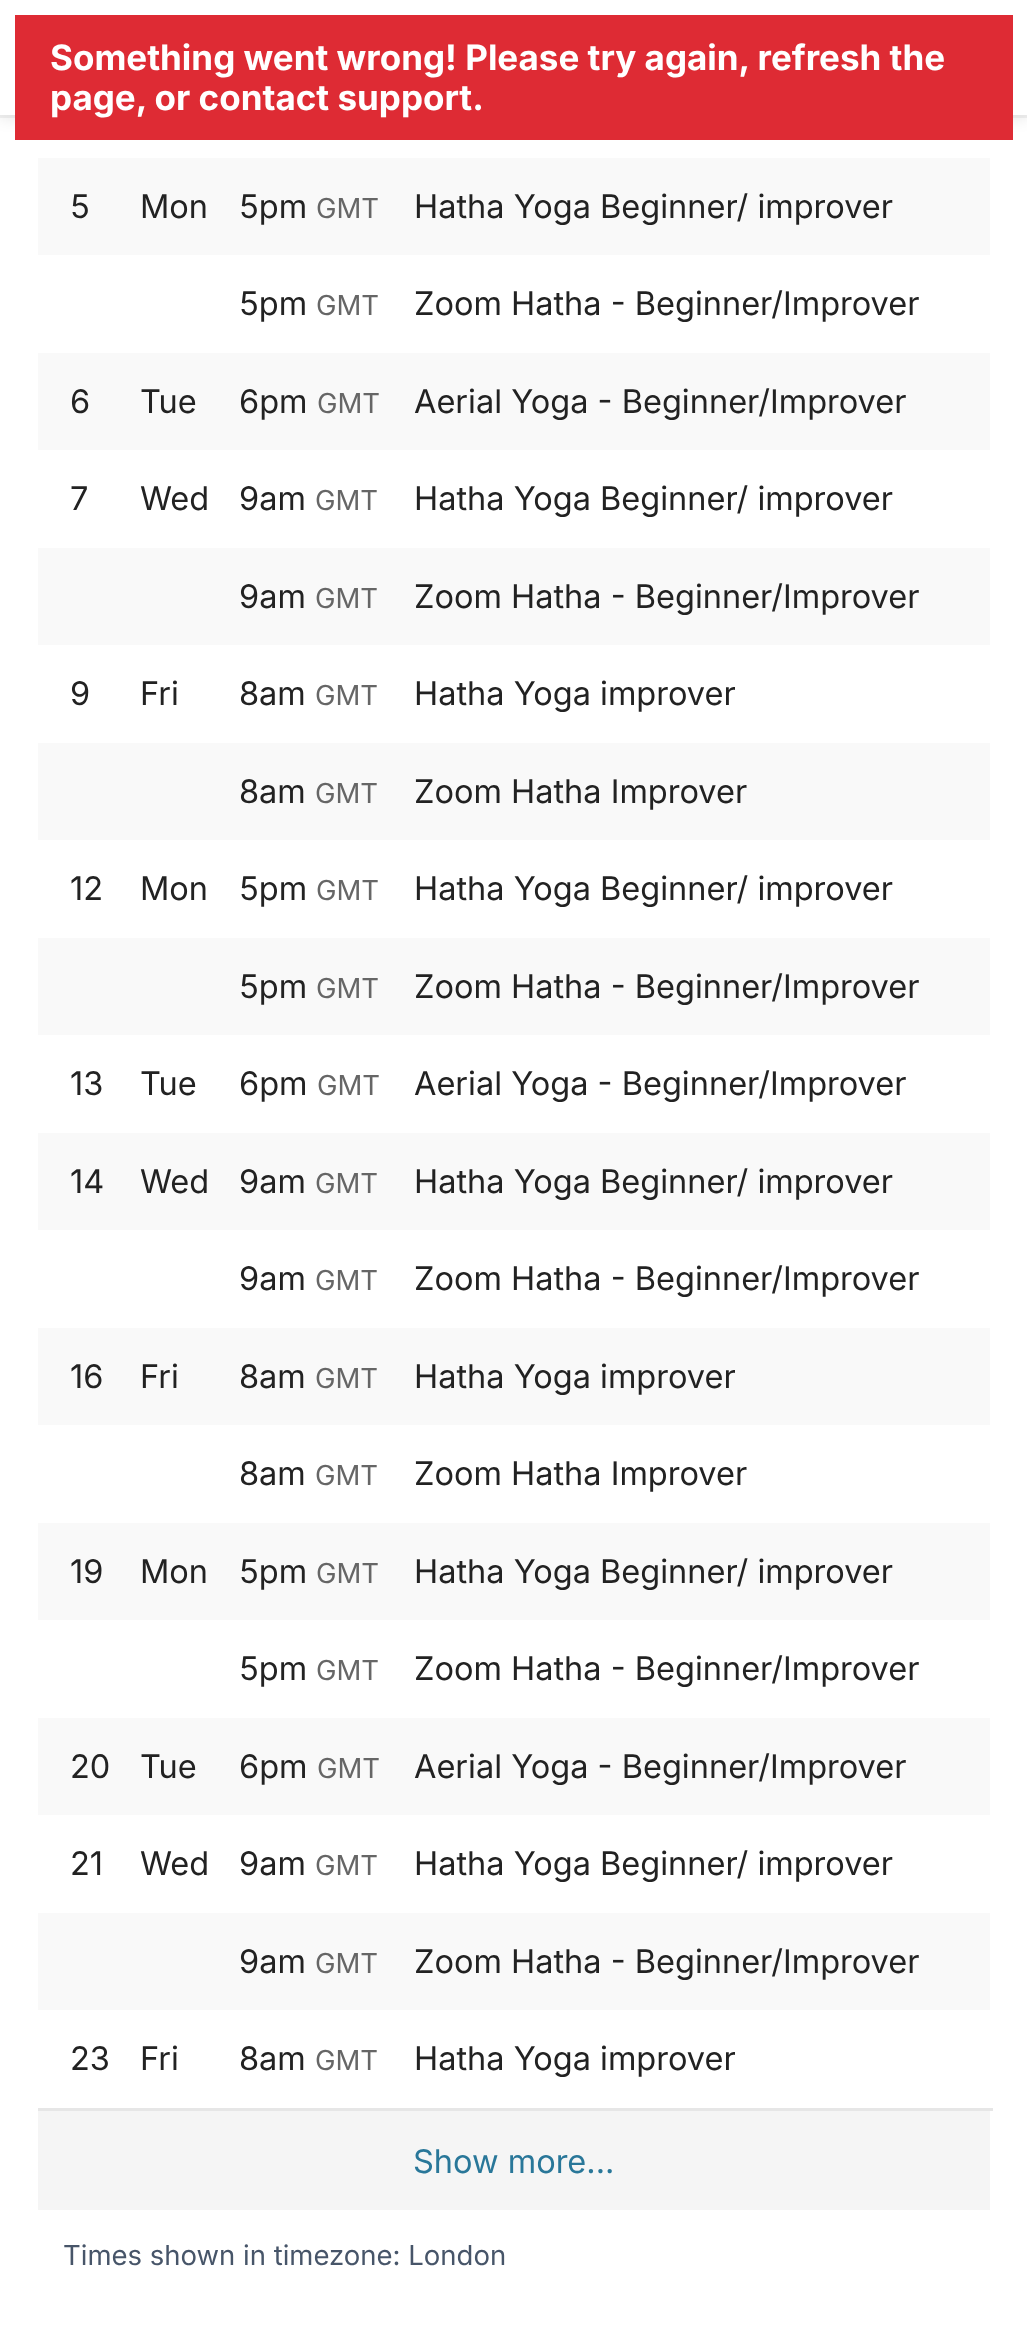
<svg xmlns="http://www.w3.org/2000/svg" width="1027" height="2340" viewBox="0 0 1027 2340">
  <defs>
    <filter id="blur1" x="-50%" y="-200%" width="200%" height="500%"><feGaussianBlur stdDeviation="7.5"/></filter>
  </defs>
  <rect width="100%" height="100%" fill="#ffffff"/>
  <rect x="0" y="3" width="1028" height="115" fill="#323232" fill-opacity="0.1" filter="url(#blur1)"/>
  <path d="M0 115V118H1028V3V115Z" fill="#646464" fill-opacity="0.1"/>
  <rect x="0" y="0" width="1027" height="115" fill="#ffffff"/>
  <rect x="15" y="15" width="998" height="125" fill="#de2b34"/>
  <text x="50" y="70" font-family="Inter" font-size="35" font-weight="bold" fill="#ffffff">Something went wrong! Please try again, refresh the</text>
  <text x="50" y="110" font-family="Inter" font-size="35" font-weight="bold" fill="#ffffff">page, or contact support.</text>
  <rect x="38" y="158" width="952" height="97" fill="#f9f9f9"/>
  <text x="70" y="218" font-family="Inter" font-size="32.5" fill="#222222">5</text>
  <text x="140" y="218" font-family="Inter" font-size="32.5" fill="#222222">Mon</text>
  <text x="239" y="218" font-family="Inter" font-size="32.5" fill="#222222">5pm</text>
  <text x="316" y="218" font-family="Inter" font-size="27.5" fill="#666666">GMT</text>
  <text x="414" y="218" font-family="Inter" font-size="32.5" fill="#222222">Hatha Yoga Beginner/ improver</text>
  <text x="239" y="315" font-family="Inter" font-size="32.5" fill="#222222">5pm</text>
  <text x="316" y="315" font-family="Inter" font-size="27.5" fill="#666666">GMT</text>
  <text x="414" y="315" font-family="Inter" font-size="32.5" fill="#222222">Zoom Hatha - Beginner/Improver</text>
  <rect x="38" y="353" width="952" height="97" fill="#f9f9f9"/>
  <text x="70" y="413" font-family="Inter" font-size="32.5" fill="#222222">6</text>
  <text x="140" y="413" font-family="Inter" font-size="32.5" fill="#222222">Tue</text>
  <text x="239" y="413" font-family="Inter" font-size="32.5" fill="#222222">6pm</text>
  <text x="317" y="413" font-family="Inter" font-size="27.5" fill="#666666">GMT</text>
  <text x="414" y="413" font-family="Inter" font-size="32.5" fill="#222222">Aerial Yoga - Beginner/Improver</text>
  <text x="70" y="510" font-family="Inter" font-size="32.5" fill="#222222">7</text>
  <text x="140" y="510" font-family="Inter" font-size="32.5" fill="#222222">Wed</text>
  <text x="239" y="510" font-family="Inter" font-size="32.5" fill="#222222">9am</text>
  <text x="315" y="510" font-family="Inter" font-size="27.5" fill="#666666">GMT</text>
  <text x="414" y="510" font-family="Inter" font-size="32.5" fill="#222222">Hatha Yoga Beginner/ improver</text>
  <rect x="38" y="548" width="952" height="97" fill="#f9f9f9"/>
  <text x="239" y="608" font-family="Inter" font-size="32.5" fill="#222222">9am</text>
  <text x="315" y="608" font-family="Inter" font-size="27.5" fill="#666666">GMT</text>
  <text x="414" y="608" font-family="Inter" font-size="32.5" fill="#222222">Zoom Hatha - Beginner/Improver</text>
  <text x="70" y="705" font-family="Inter" font-size="32.5" fill="#222222">9</text>
  <text x="140" y="705" font-family="Inter" font-size="32.5" fill="#222222">Fri</text>
  <text x="239" y="705" font-family="Inter" font-size="32.5" fill="#222222">8am</text>
  <text x="315" y="705" font-family="Inter" font-size="27.5" fill="#666666">GMT</text>
  <text x="414" y="705" font-family="Inter" font-size="32.5" fill="#222222">Hatha Yoga improver</text>
  <rect x="38" y="743" width="952" height="97" fill="#f9f9f9"/>
  <text x="239" y="803" font-family="Inter" font-size="32.5" fill="#222222">8am</text>
  <text x="315" y="803" font-family="Inter" font-size="27.5" fill="#666666">GMT</text>
  <text x="414" y="803" font-family="Inter" font-size="32.5" fill="#222222">Zoom Hatha Improver</text>
  <text x="70" y="900" font-family="Inter" font-size="32.5" fill="#222222">12</text>
  <text x="140" y="900" font-family="Inter" font-size="32.5" fill="#222222">Mon</text>
  <text x="239" y="900" font-family="Inter" font-size="32.5" fill="#222222">5pm</text>
  <text x="316" y="900" font-family="Inter" font-size="27.5" fill="#666666">GMT</text>
  <text x="414" y="900" font-family="Inter" font-size="32.5" fill="#222222">Hatha Yoga Beginner/ improver</text>
  <rect x="38" y="938" width="952" height="97" fill="#f9f9f9"/>
  <text x="239" y="998" font-family="Inter" font-size="32.5" fill="#222222">5pm</text>
  <text x="316" y="998" font-family="Inter" font-size="27.5" fill="#666666">GMT</text>
  <text x="414" y="998" font-family="Inter" font-size="32.5" fill="#222222">Zoom Hatha - Beginner/Improver</text>
  <text x="70" y="1095" font-family="Inter" font-size="32.5" fill="#222222">13</text>
  <text x="140" y="1095" font-family="Inter" font-size="32.5" fill="#222222">Tue</text>
  <text x="239" y="1095" font-family="Inter" font-size="32.5" fill="#222222">6pm</text>
  <text x="317" y="1095" font-family="Inter" font-size="27.5" fill="#666666">GMT</text>
  <text x="414" y="1095" font-family="Inter" font-size="32.5" fill="#222222">Aerial Yoga - Beginner/Improver</text>
  <rect x="38" y="1133" width="952" height="97" fill="#f9f9f9"/>
  <text x="70" y="1193" font-family="Inter" font-size="32.5" fill="#222222">14</text>
  <text x="140" y="1193" font-family="Inter" font-size="32.5" fill="#222222">Wed</text>
  <text x="239" y="1193" font-family="Inter" font-size="32.5" fill="#222222">9am</text>
  <text x="315" y="1193" font-family="Inter" font-size="27.5" fill="#666666">GMT</text>
  <text x="414" y="1193" font-family="Inter" font-size="32.5" fill="#222222">Hatha Yoga Beginner/ improver</text>
  <text x="239" y="1290" font-family="Inter" font-size="32.5" fill="#222222">9am</text>
  <text x="315" y="1290" font-family="Inter" font-size="27.5" fill="#666666">GMT</text>
  <text x="414" y="1290" font-family="Inter" font-size="32.5" fill="#222222">Zoom Hatha - Beginner/Improver</text>
  <rect x="38" y="1328" width="952" height="97" fill="#f9f9f9"/>
  <text x="70" y="1388" font-family="Inter" font-size="32.5" fill="#222222">16</text>
  <text x="140" y="1388" font-family="Inter" font-size="32.5" fill="#222222">Fri</text>
  <text x="239" y="1388" font-family="Inter" font-size="32.5" fill="#222222">8am</text>
  <text x="315" y="1388" font-family="Inter" font-size="27.5" fill="#666666">GMT</text>
  <text x="414" y="1388" font-family="Inter" font-size="32.5" fill="#222222">Hatha Yoga improver</text>
  <text x="239" y="1485" font-family="Inter" font-size="32.5" fill="#222222">8am</text>
  <text x="315" y="1485" font-family="Inter" font-size="27.5" fill="#666666">GMT</text>
  <text x="414" y="1485" font-family="Inter" font-size="32.5" fill="#222222">Zoom Hatha Improver</text>
  <rect x="38" y="1523" width="952" height="97" fill="#f9f9f9"/>
  <text x="70" y="1583" font-family="Inter" font-size="32.5" fill="#222222">19</text>
  <text x="140" y="1583" font-family="Inter" font-size="32.5" fill="#222222">Mon</text>
  <text x="239" y="1583" font-family="Inter" font-size="32.5" fill="#222222">5pm</text>
  <text x="316" y="1583" font-family="Inter" font-size="27.5" fill="#666666">GMT</text>
  <text x="414" y="1583" font-family="Inter" font-size="32.5" fill="#222222">Hatha Yoga Beginner/ improver</text>
  <text x="239" y="1680" font-family="Inter" font-size="32.5" fill="#222222">5pm</text>
  <text x="316" y="1680" font-family="Inter" font-size="27.5" fill="#666666">GMT</text>
  <text x="414" y="1680" font-family="Inter" font-size="32.5" fill="#222222">Zoom Hatha - Beginner/Improver</text>
  <rect x="38" y="1718" width="952" height="97" fill="#f9f9f9"/>
  <text x="70" y="1778" font-family="Inter" font-size="32.5" fill="#222222">20</text>
  <text x="140" y="1778" font-family="Inter" font-size="32.5" fill="#222222">Tue</text>
  <text x="239" y="1778" font-family="Inter" font-size="32.5" fill="#222222">6pm</text>
  <text x="317" y="1778" font-family="Inter" font-size="27.5" fill="#666666">GMT</text>
  <text x="414" y="1778" font-family="Inter" font-size="32.5" fill="#222222">Aerial Yoga - Beginner/Improver</text>
  <text x="70" y="1875" font-family="Inter" font-size="32.5" fill="#222222">21</text>
  <text x="140" y="1875" font-family="Inter" font-size="32.5" fill="#222222">Wed</text>
  <text x="239" y="1875" font-family="Inter" font-size="32.5" fill="#222222">9am</text>
  <text x="315" y="1875" font-family="Inter" font-size="27.5" fill="#666666">GMT</text>
  <text x="414" y="1875" font-family="Inter" font-size="32.5" fill="#222222">Hatha Yoga Beginner/ improver</text>
  <rect x="38" y="1913" width="952" height="97" fill="#f9f9f9"/>
  <text x="239" y="1973" font-family="Inter" font-size="32.5" fill="#222222">9am</text>
  <text x="315" y="1973" font-family="Inter" font-size="27.5" fill="#666666">GMT</text>
  <text x="414" y="1973" font-family="Inter" font-size="32.5" fill="#222222">Zoom Hatha - Beginner/Improver</text>
  <text x="70" y="2070" font-family="Inter" font-size="32.5" fill="#222222">23</text>
  <text x="140" y="2070" font-family="Inter" font-size="32.5" fill="#222222">Fri</text>
  <text x="239" y="2070" font-family="Inter" font-size="32.5" fill="#222222">8am</text>
  <text x="315" y="2070" font-family="Inter" font-size="27.5" fill="#666666">GMT</text>
  <text x="414" y="2070" font-family="Inter" font-size="32.5" fill="#222222">Hatha Yoga improver</text>
  <rect x="38" y="2111" width="952" height="99" fill="#f5f5f5"/>
  <rect x="38" y="2108" width="955" height="3" fill="#e6e6e6"/>
  <text x="413" y="2173" font-family="Inter" font-size="32.5" fill="#297799">Show more...</text>
  <text x="63" y="2265" font-family="Inter" font-size="27.5" fill="#475569">Times shown in timezone: London</text>
</svg>
